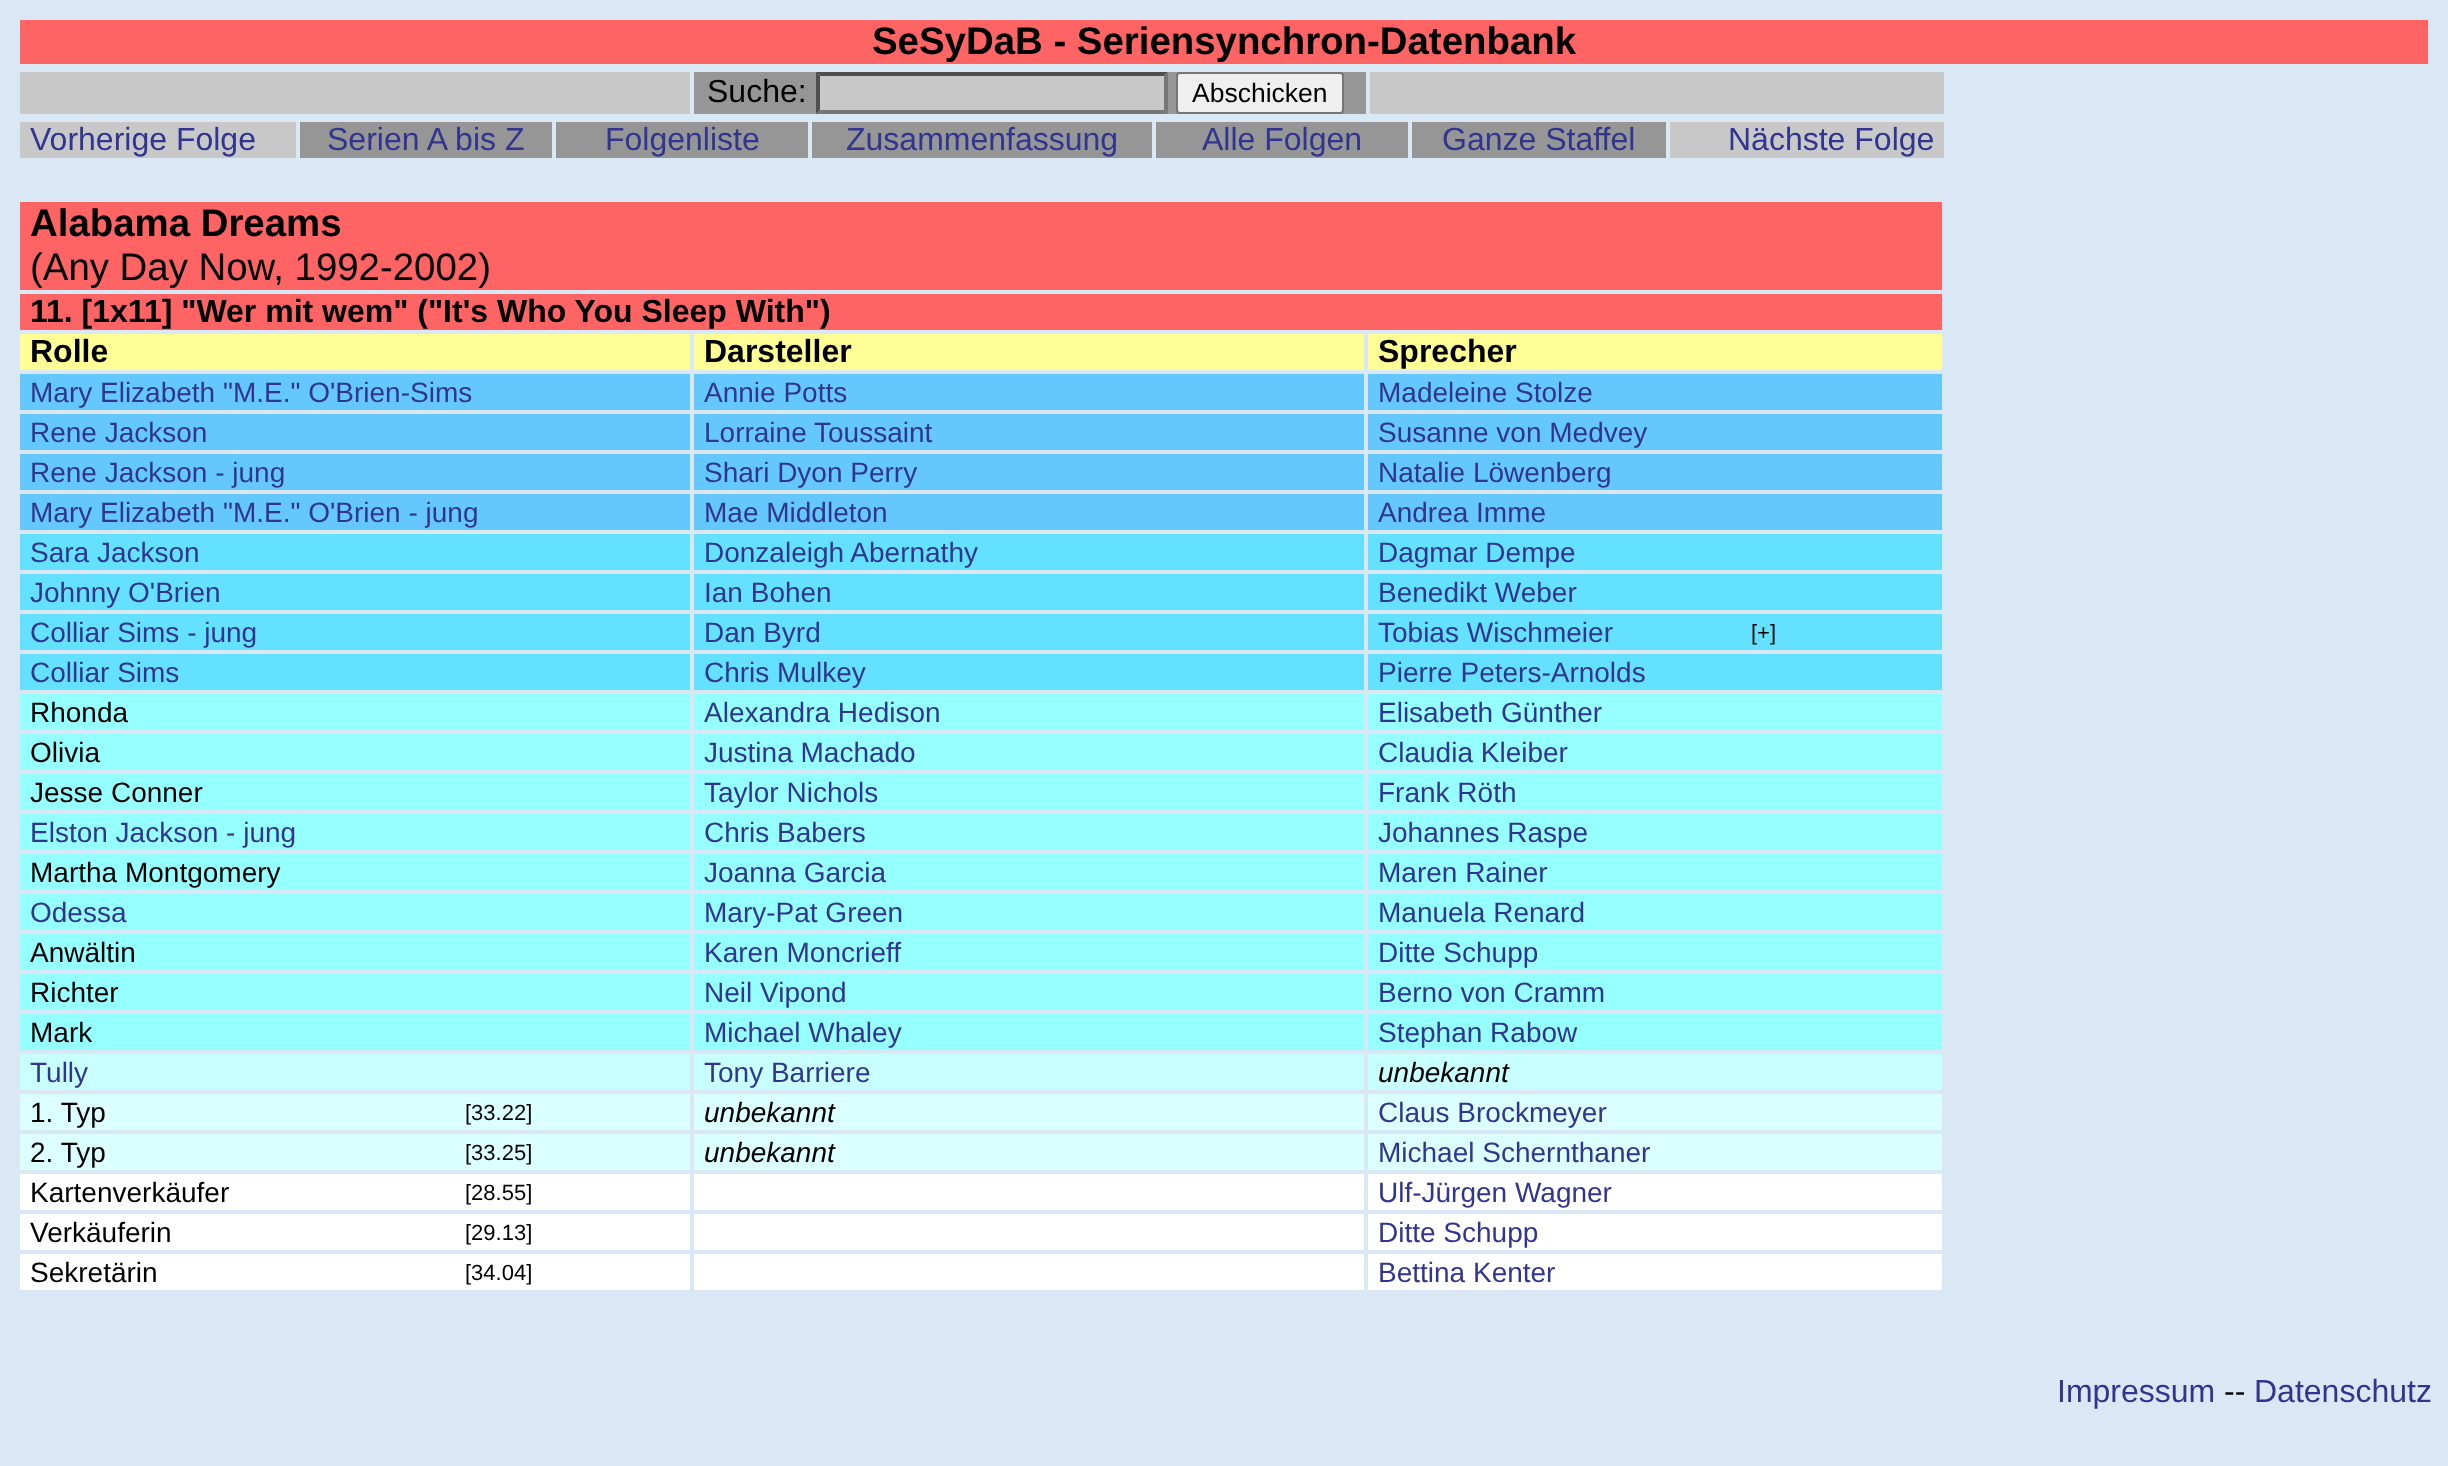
<!DOCTYPE html>
<meta charset="utf-8">
<style>body { margin: 0 } canvas { display: block }</style>
<canvas id="canvas" width="2448" height="1466"></canvas>
<script>
window.onload = function () {
	const canvas = document.getElementById("canvas");
	const ctx = canvas.getContext("2d");
	ctx.miterLimit = 4;
	ctx.fontKerning = "normal";
	function txt(s, x, y) {
		ctx.fillText(s, x, y);
	}
	function fill(x, y, w, h) {
		ctx.fillRect(x, y, w, h);
	}

	ctx.fillStyle = "#DAE7F4";
	fill(0, 0, 2448, 1466);
	ctx.fillStyle = "#FF6464";
	fill(20, 20, 2408, 44);
	ctx.fillStyle = "#C8C8C8";
	fill(20, 72, 670, 42);
	ctx.fillStyle = "#969696";
	fill(694, 72, 672, 42);
	ctx.fillStyle = "#C8C8C8";
	fill(816, 72, 352, 42);
	ctx.fillStyle = "#4F4F4F";
	ctx.beginPath();
	ctx.moveTo(816, 72);
	ctx.lineTo(1168, 72);
	ctx.lineTo(1164, 76);
	ctx.lineTo(820, 76);
	ctx.closePath();
	ctx.fill();
	ctx.fillStyle = "#767676";
	ctx.beginPath();
	ctx.moveTo(1168, 72);
	ctx.lineTo(1168, 114);
	ctx.lineTo(1164, 110);
	ctx.lineTo(1164, 76);
	ctx.closePath();
	ctx.fill();
	ctx.beginPath();
	ctx.moveTo(1168, 114);
	ctx.lineTo(816, 114);
	ctx.lineTo(820, 110);
	ctx.lineTo(1164, 110);
	ctx.closePath();
	ctx.fill();
	ctx.fillStyle = "#4F4F4F";
	ctx.beginPath();
	ctx.moveTo(816, 114);
	ctx.lineTo(816, 72);
	ctx.lineTo(820, 76);
	ctx.lineTo(820, 110);
	ctx.closePath();
	ctx.fill();
	ctx.fillStyle = "#EFEFEF";
	ctx.beginPath();
	ctx.roundRect(1177, 73, 166, 40, 3);
	ctx.fill();
	ctx.strokeStyle = "#767676";
	ctx.lineWidth = 2;
	ctx.stroke();
	ctx.fillStyle = "#C8C8C8";
	fill(1370, 72, 574, 42);
	fill(20, 122, 276, 36);
	ctx.fillStyle = "#969696";
	fill(300, 122, 252, 36);
	fill(556, 122, 252, 36);
	fill(812, 122, 340, 36);
	fill(1156, 122, 252, 36);
	fill(1412, 122, 254, 36);
	ctx.fillStyle = "#C8C8C8";
	fill(1670, 122, 274, 36);
	ctx.fillStyle = "#FF6464";
	fill(20, 202, 1922, 88);
	fill(20, 294, 1922, 36);
	ctx.fillStyle = "#FFFF96";
	fill(20, 334, 670, 36);
	fill(694, 334, 670, 36);
	fill(1368, 334, 574, 36);
	ctx.fillStyle = "#64C8FF";
	fill(20, 374, 670, 36);
	fill(694, 374, 670, 36);
	fill(1368, 374, 574, 36);
	fill(20, 414, 670, 36);
	fill(694, 414, 670, 36);
	fill(1368, 414, 574, 36);
	fill(20, 454, 670, 36);
	fill(694, 454, 670, 36);
	fill(1368, 454, 574, 36);
	fill(20, 494, 670, 36);
	fill(694, 494, 670, 36);
	fill(1368, 494, 574, 36);
	ctx.fillStyle = "#64E1FF";
	fill(20, 534, 670, 36);
	fill(694, 534, 670, 36);
	fill(1368, 534, 574, 36);
	fill(20, 574, 670, 36);
	fill(694, 574, 670, 36);
	fill(1368, 574, 574, 36);
	fill(20, 614, 670, 36);
	fill(694, 614, 670, 36);
	fill(1368, 614, 574, 36);
	fill(20, 654, 670, 36);
	fill(694, 654, 670, 36);
	fill(1368, 654, 574, 36);
	ctx.fillStyle = "#96FFFF";
	fill(20, 694, 670, 36);
	fill(694, 694, 670, 36);
	fill(1368, 694, 574, 36);
	fill(20, 734, 670, 36);
	fill(694, 734, 670, 36);
	fill(1368, 734, 574, 36);
	fill(20, 774, 670, 36);
	fill(694, 774, 670, 36);
	fill(1368, 774, 574, 36);
	fill(20, 814, 670, 36);
	fill(694, 814, 670, 36);
	fill(1368, 814, 574, 36);
	fill(20, 854, 670, 36);
	fill(694, 854, 670, 36);
	fill(1368, 854, 574, 36);
	fill(20, 894, 670, 36);
	fill(694, 894, 670, 36);
	fill(1368, 894, 574, 36);
	fill(20, 934, 670, 36);
	fill(694, 934, 670, 36);
	fill(1368, 934, 574, 36);
	fill(20, 974, 670, 36);
	fill(694, 974, 670, 36);
	fill(1368, 974, 574, 36);
	fill(20, 1014, 670, 36);
	fill(694, 1014, 670, 36);
	fill(1368, 1014, 574, 36);
	ctx.fillStyle = "#C8FFFF";
	fill(20, 1054, 670, 36);
	fill(694, 1054, 670, 36);
	fill(1368, 1054, 574, 36);
	ctx.fillStyle = "#DCFFFF";
	fill(20, 1094, 670, 36);
	fill(694, 1094, 670, 36);
	fill(1368, 1094, 574, 36);
	fill(20, 1134, 670, 36);
	fill(694, 1134, 670, 36);
	fill(1368, 1134, 574, 36);
	ctx.fillStyle = "#FFFFFF";
	fill(20, 1174, 670, 36);
	fill(694, 1174, 670, 36);
	fill(1368, 1174, 574, 36);
	fill(20, 1214, 670, 36);
	fill(694, 1214, 670, 36);
	fill(1368, 1214, 574, 36);
	fill(20, 1254, 670, 36);
	fill(694, 1254, 670, 36);
	fill(1368, 1254, 574, 36);
	ctx.font = "bold 38.4px Liberation Sans";
	ctx.fillStyle = "#000000";
	txt("SeSyDaB - Seriensynchron-Datenbank", 872, 54);
	ctx.font = "32px Liberation Sans";
	txt("Suche:", 707, 102);
	ctx.font = "26.5px Liberation Sans";
	txt("Abschicken", 1192, 102);
	ctx.font = "32px Liberation Sans";
	ctx.fillStyle = "#323590";
	txt("Vorherige Folge", 30, 150);
	txt("Serien A bis Z", 327, 150);
	txt("Folgenliste", 605, 150);
	txt("Zusammenfassung", 846, 150);
	txt("Alle Folgen", 1202, 150);
	txt("Ganze Staffel", 1442, 150);
	txt("Nächste Folge", 1728, 150);
	ctx.font = "bold 38.4px Liberation Sans";
	ctx.fillStyle = "#000000";
	txt("Alabama Dreams", 30, 236);
	ctx.font = "38.4px Liberation Sans";
	txt("(Any Day Now, 1992-2002)", 30, 280);
	ctx.font = "bold 32px Liberation Sans";
	txt("11. [1x11] \"Wer mit wem\" (\"It's Who You Sleep With\")", 30, 322);
	txt("Rolle", 30, 362);
	txt("Darsteller", 704, 362);
	txt("Sprecher", 1378, 362);
	ctx.font = "28px Liberation Sans";
	ctx.fillStyle = "#323590";
	txt("Mary Elizabeth \"M.E.\" O'Brien-Sims", 30, 402);
	txt("Annie Potts", 704, 402);
	txt("Madeleine Stolze", 1378, 402);
	txt("Rene Jackson", 30, 442);
	txt("Lorraine Toussaint", 704, 442);
	txt("Susanne von Medvey", 1378, 442);
	txt("Rene Jackson - jung", 30, 482);
	txt("Shari Dyon Perry", 704, 482);
	txt("Natalie Löwenberg", 1378, 482);
	txt("Mary Elizabeth \"M.E.\" O'Brien - jung", 30, 522);
	txt("Mae Middleton", 704, 522);
	txt("Andrea Imme", 1378, 522);
	txt("Sara Jackson", 30, 562);
	txt("Donzaleigh Abernathy", 704, 562);
	txt("Dagmar Dempe", 1378, 562);
	txt("Johnny O'Brien", 30, 602);
	txt("Ian Bohen", 704, 602);
	txt("Benedikt Weber", 1378, 602);
	txt("Colliar Sims - jung", 30, 642);
	txt("Dan Byrd", 704, 642);
	txt("Tobias Wischmeier", 1378, 642);
	ctx.font = "22px Liberation Sans";
	ctx.fillStyle = "#000000";
	txt("[+]", 1751, 640);
	ctx.font = "28px Liberation Sans";
	ctx.fillStyle = "#323590";
	txt("Colliar Sims", 30, 682);
	txt("Chris Mulkey", 704, 682);
	txt("Pierre Peters-Arnolds", 1378, 682);
	ctx.fillStyle = "#000000";
	txt("Rhonda", 30, 722);
	ctx.fillStyle = "#323590";
	txt("Alexandra Hedison", 704, 722);
	txt("Elisabeth Günther", 1378, 722);
	ctx.fillStyle = "#000000";
	txt("Olivia", 30, 762);
	ctx.fillStyle = "#323590";
	txt("Justina Machado", 704, 762);
	txt("Claudia Kleiber", 1378, 762);
	ctx.fillStyle = "#000000";
	txt("Jesse Conner", 30, 802);
	ctx.fillStyle = "#323590";
	txt("Taylor Nichols", 704, 802);
	txt("Frank Röth", 1378, 802);
	txt("Elston Jackson - jung", 30, 842);
	txt("Chris Babers", 704, 842);
	txt("Johannes Raspe", 1378, 842);
	ctx.fillStyle = "#000000";
	txt("Martha Montgomery", 30, 882);
	ctx.fillStyle = "#323590";
	txt("Joanna Garcia", 704, 882);
	txt("Maren Rainer", 1378, 882);
	txt("Odessa", 30, 922);
	txt("Mary-Pat Green", 704, 922);
	txt("Manuela Renard", 1378, 922);
	ctx.fillStyle = "#000000";
	txt("Anwältin", 30, 962);
	ctx.fillStyle = "#323590";
	txt("Karen Moncrieff", 704, 962);
	txt("Ditte Schupp", 1378, 962);
	ctx.fillStyle = "#000000";
	txt("Richter", 30, 1002);
	ctx.fillStyle = "#323590";
	txt("Neil Vipond", 704, 1002);
	txt("Berno von Cramm", 1378, 1002);
	ctx.fillStyle = "#000000";
	txt("Mark", 30, 1042);
	ctx.fillStyle = "#323590";
	txt("Michael Whaley", 704, 1042);
	txt("Stephan Rabow", 1378, 1042);
	txt("Tully", 30, 1082);
	txt("Tony Barriere", 704, 1082);
	ctx.font = "italic 28px Liberation Sans";
	ctx.fillStyle = "#000000";
	txt("unbekannt", 1378, 1082);
	ctx.font = "28px Liberation Sans";
	txt("1. Typ", 30, 1122);
	ctx.font = "22px Liberation Sans";
	txt("[33.22]", 465, 1120);
	ctx.font = "italic 28px Liberation Sans";
	txt("unbekannt", 704, 1122);
	ctx.font = "28px Liberation Sans";
	ctx.fillStyle = "#323590";
	txt("Claus Brockmeyer", 1378, 1122);
	ctx.fillStyle = "#000000";
	txt("2. Typ", 30, 1162);
	ctx.font = "22px Liberation Sans";
	txt("[33.25]", 465, 1160);
	ctx.font = "italic 28px Liberation Sans";
	txt("unbekannt", 704, 1162);
	ctx.font = "28px Liberation Sans";
	ctx.fillStyle = "#323590";
	txt("Michael Schernthaner", 1378, 1162);
	ctx.fillStyle = "#000000";
	txt("Kartenverkäufer", 30, 1202);
	ctx.font = "22px Liberation Sans";
	txt("[28.55]", 465, 1200);
	ctx.font = "28px Liberation Sans";
	ctx.fillStyle = "#323590";
	txt("Ulf-Jürgen Wagner", 1378, 1202);
	ctx.fillStyle = "#000000";
	txt("Verkäuferin", 30, 1242);
	ctx.font = "22px Liberation Sans";
	txt("[29.13]", 465, 1240);
	ctx.font = "28px Liberation Sans";
	ctx.fillStyle = "#323590";
	txt("Ditte Schupp", 1378, 1242);
	ctx.fillStyle = "#000000";
	txt("Sekretärin", 30, 1282);
	ctx.font = "22px Liberation Sans";
	txt("[34.04]", 465, 1280);
	ctx.font = "28px Liberation Sans";
	ctx.fillStyle = "#323590";
	txt("Bettina Kenter", 1378, 1282);
	ctx.font = "32px Liberation Sans";
	txt("Impressum", 2057, 1402);
	ctx.fillStyle = "#000000";
	txt("--", 2224, 1402);
	ctx.fillStyle = "#323590";
	txt("Datenschutz", 2254, 1402);
};
</script>
